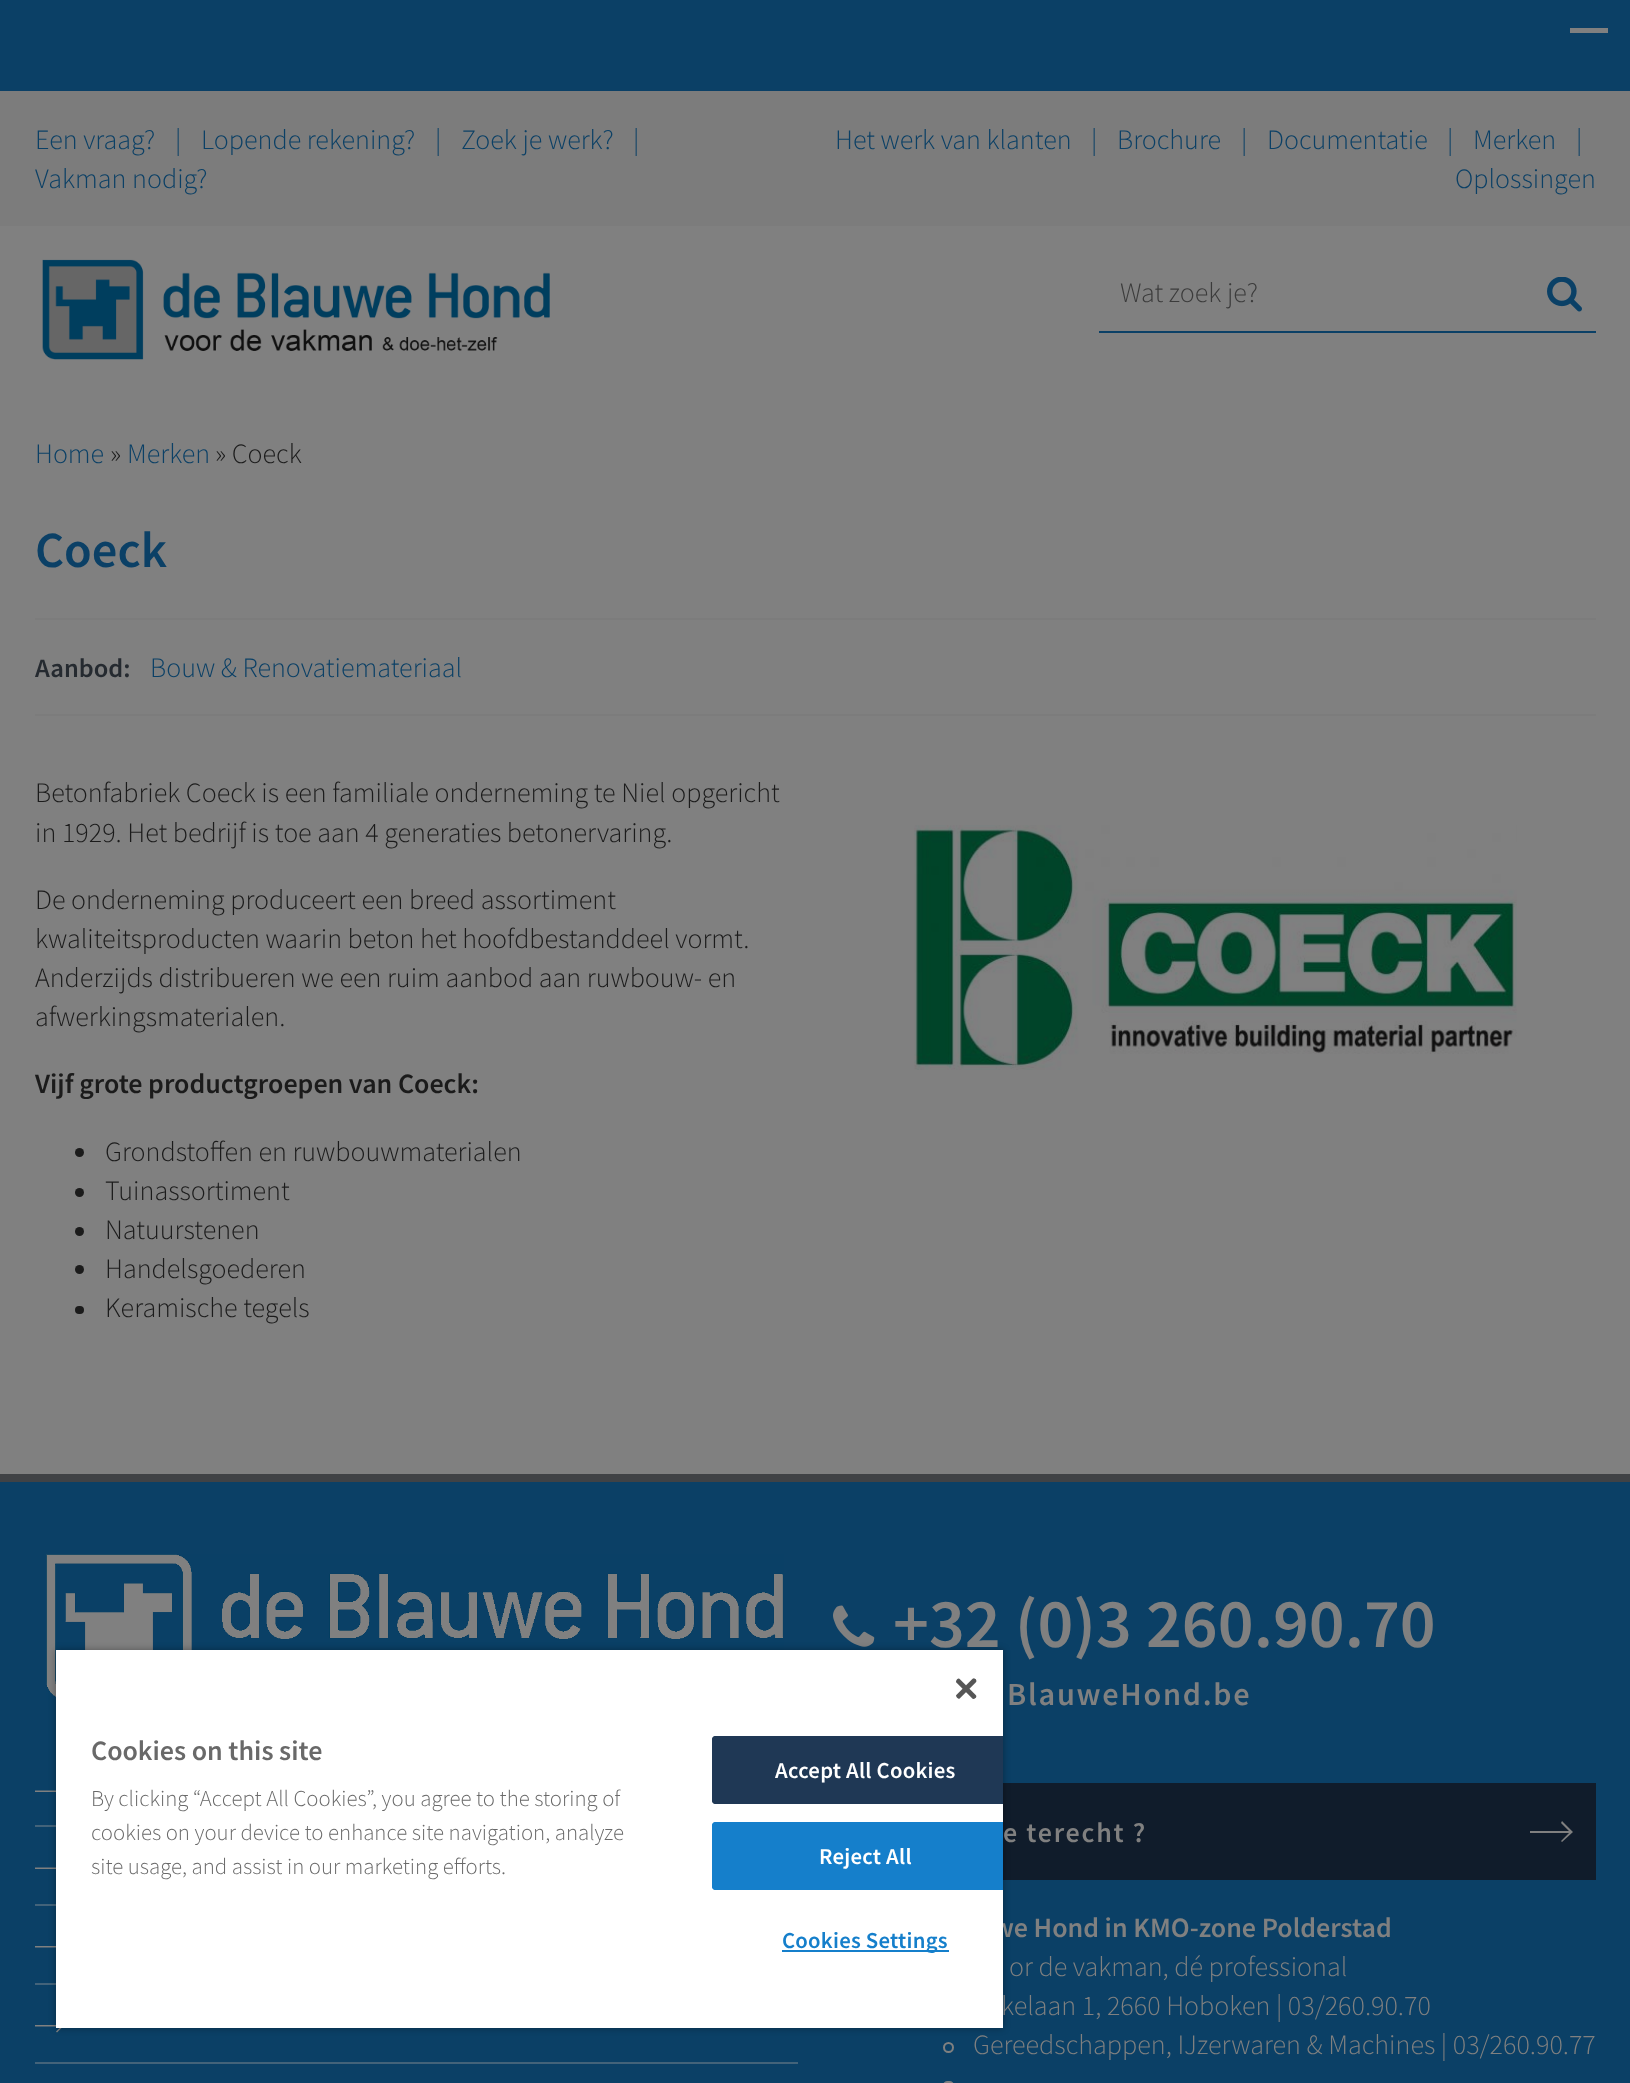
<!DOCTYPE html>
<meta charset="utf-8">
<style>body { margin: 0 } canvas { display: block }</style>
<canvas id="canvas" width="1630" height="2083"></canvas>
<img id="img1" src="img_01.png" hidden>
<img id="img2" src="img_02.png" hidden>
<img id="img3" src="img_03.png" hidden>
<img id="img4" src="img_04.png" hidden>
<img id="img5" src="img_05.png" hidden>
<img id="img6" src="img_06.png" hidden>
<script>
window.onload = function () {
	const canvas = document.getElementById("canvas");
	const ctx = canvas.getContext("2d");
	ctx.miterLimit = 4;
	ctx.fontKerning = "normal";
	function txt(s, x, y) {
		ctx.fillText(s, x, y);
	}
	function fill(x, y, w, h) {
		ctx.fillRect(x, y, w, h);
	}
	function round(x, y, w, h, r) {
		ctx.beginPath();
		ctx.roundRect(x, y, w, h, r);
		ctx.fill();
	}
	function img(id, x, y, w, h) {
		ctx.drawImage(document.getElementById(id), x, y, w, h);
	}

	ctx.fillStyle = "#808080";
	fill(0, 0, 1630, 2083);
	ctx.fillStyle = "#0B4066";
	fill(0, 0, 1630, 91);
	ctx.fillStyle = "#808080";
	fill(1570, 28, 38, 5);
	ctx.fillStyle = "#7C7C7C";
	fill(0, 91, 1630, 135);
	img("img1", 42, 259, 508, 101);
	ctx.fillStyle = "#0B4066";
	fill(1099, 331, 497, 2);
	img("img2", 1547, 277, 35, 35);
	ctx.fillStyle = "#7C7C7C";
	fill(35, 618, 1561, 2);
	fill(35, 714, 1561, 2);
	ctx.fillStyle = "#1B1B1B";
	ctx.beginPath();
	ctx.arc(79.5, 1152.5, 4.5, 0, Math.PI * 2);
	ctx.fill();
	ctx.beginPath();
	ctx.arc(79.5, 1192.5, 4.5, 0, Math.PI * 2);
	ctx.fill();
	ctx.beginPath();
	ctx.arc(79.5, 1231.5, 4.5, 0, Math.PI * 2);
	ctx.fill();
	ctx.beginPath();
	ctx.arc(79.5, 1269.5, 4.5, 0, Math.PI * 2);
	ctx.fill();
	round(75, 1306, 9, 8, 4);
	img("img3", 914, 825, 603, 245);
	ctx.fillStyle = "#0B4066";
	fill(0, 1482, 1630, 601);
	ctx.fillStyle = "#404245";
	fill(0, 1474, 1630, 8);
	img("img4", 46, 1554, 738, 146);
	ctx.fillStyle = "#43637A";
	fill(35, 1825, 21, 2);
	ctx.fillStyle = "#808080";
	ctx.beginPath();
	ctx.moveTo(57, 1798);
	ctx.lineTo(56, 1797);
	ctx.lineTo(62, 1791);
	ctx.lineTo(56, 1785);
	ctx.lineTo(57, 1784);
	ctx.lineTo(64, 1791);
	ctx.closePath();
	ctx.moveTo(35, 1790.5);
	ctx.lineTo(63, 1790.5);
	ctx.lineTo(63, 1792);
	ctx.lineTo(35, 1792);
	ctx.closePath();
	ctx.fill();
	ctx.fillStyle = "#43637A";
	fill(35, 1904, 21, 2);
	ctx.fillStyle = "#808080";
	ctx.beginPath();
	ctx.moveTo(57, 1875);
	ctx.lineTo(56, 1874);
	ctx.lineTo(62, 1868);
	ctx.lineTo(56, 1862);
	ctx.lineTo(57, 1861);
	ctx.lineTo(64, 1868);
	ctx.closePath();
	ctx.moveTo(35, 1867.5);
	ctx.lineTo(63, 1867.5);
	ctx.lineTo(63, 1869);
	ctx.lineTo(35, 1869);
	ctx.closePath();
	ctx.fill();
	ctx.fillStyle = "#43637A";
	fill(35, 1983, 21, 2);
	ctx.fillStyle = "#808080";
	ctx.beginPath();
	ctx.moveTo(57, 1954);
	ctx.lineTo(56, 1953);
	ctx.lineTo(62, 1947);
	ctx.lineTo(56, 1941);
	ctx.lineTo(57, 1940);
	ctx.lineTo(64, 1947);
	ctx.closePath();
	ctx.moveTo(35, 1946);
	ctx.lineTo(63, 1946);
	ctx.lineTo(63, 1947.5);
	ctx.lineTo(35, 1947.5);
	ctx.closePath();
	ctx.fill();
	ctx.fillStyle = "#43637A";
	fill(35, 2062, 763, 2);
	ctx.fillStyle = "#808080";
	ctx.beginPath();
	ctx.moveTo(57, 2032.5);
	ctx.lineTo(56, 2031.5);
	ctx.lineTo(62, 2025.5);
	ctx.lineTo(56, 2019.5);
	ctx.lineTo(57, 2018.5);
	ctx.lineTo(64, 2025.5);
	ctx.closePath();
	ctx.moveTo(35, 2025);
	ctx.lineTo(63, 2025);
	ctx.lineTo(63, 2026.5);
	ctx.lineTo(35, 2026.5);
	ctx.closePath();
	ctx.fill();
	img("img5", 833, 1605, 42, 42);
	ctx.fillStyle = "#101C2B";
	fill(1003, 1783, 593, 97);
	ctx.fillStyle = "#808080";
	ctx.beginPath();
	ctx.moveTo(1562, 1842);
	ctx.lineTo(1561, 1841);
	ctx.lineTo(1570, 1832);
	ctx.lineTo(1561, 1823);
	ctx.lineTo(1562, 1821);
	ctx.lineTo(1573, 1832);
	ctx.closePath();
	ctx.moveTo(1530, 1831);
	ctx.lineTo(1572, 1831);
	ctx.lineTo(1572, 1833);
	ctx.lineTo(1530, 1833);
	ctx.closePath();
	ctx.fill();
	ctx.beginPath();
	ctx.arc(948.5, 2047.5, 4.5, 0, Math.PI * 2);
	ctx.strokeStyle = "#808080";
	ctx.lineWidth = 2;
	ctx.stroke();
	ctx.beginPath();
	ctx.roundRect(944, 2082, 9, 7, 4);
	ctx.stroke();
	ctx.fillStyle = "rgba(0, 0, 0, 0.35)";
	ctx.filter = "blur(3.5px)";
	ctx.beginPath();
	ctx.rect(56, 1650, 947, 378);
	ctx.fill();
	ctx.filter = "none";
	ctx.font = "300 28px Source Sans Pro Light";
	ctx.fillStyle = "#0B4066";
	txt("Een vraag?", 35, 149);
	txt("|", 175, 149);
	txt("Lopende rekening?", 201, 149);
	txt("|", 435, 149);
	txt("Zoek je werk?", 461, 149);
	txt("|", 633, 149);
	txt("Vakman nodig?", 35, 188);
	txt("Het werk van klanten", 835, 149);
	txt("|", 1091, 149);
	txt("Brochure", 1117, 149);
	txt("|", 1241, 149);
	txt("Documentatie", 1267, 149);
	txt("|", 1447, 149);
	txt("Merken", 1473, 149);
	txt("|", 1576, 149);
	txt("Oplossingen", 1455, 188);
	ctx.fillStyle = "#3B3B3B";
	txt("Wat zoek je?", 1120, 302);
	ctx.fillStyle = "#0B4066";
	txt("Home", 35, 463);
	ctx.fillStyle = "#1B1B1B";
	txt("»", 110, 463);
	ctx.fillStyle = "#0B4066";
	txt("Merken", 127, 463);
	ctx.fillStyle = "#1B1B1B";
	txt("» Coeck", 215, 463);
	ctx.font = "600 50.5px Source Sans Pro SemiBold";
	ctx.fillStyle = "#0B4066";
	txt("Coeck", 35, 567);
	ctx.font = "600 26.5px Source Sans Pro SemiBold";
	ctx.fillStyle = "#252A30";
	txt("Aanbod:", 35, 677);
	ctx.font = "300 28px Source Sans Pro Light";
	ctx.fillStyle = "#0B4066";
	txt("Bouw & Renovatiemateriaal", 150, 677);
	ctx.fillStyle = "#1B1B1B";
	txt("Betonfabriek Coeck is een familiale onderneming te Niel opgericht", 35, 802);
	txt("in 1929. Het bedrijf is toe aan 4 generaties betonervaring.", 35, 842);
	txt("De onderneming produceert een breed assortiment", 35, 909);
	txt("kwaliteitsproducten waarin beton het hoofdbestanddeel vormt.", 35, 948);
	txt("Anderzijds distribueren we een ruim aanbod aan ruwbouw- en", 35, 987);
	txt("afwerkingsmaterialen.", 35, 1026);
	ctx.font = "600 28px Source Sans Pro SemiBold";
	txt("Vijf grote productgroepen van Coeck:", 35, 1093);
	ctx.font = "300 28px Source Sans Pro Light";
	txt("Grondstoffen en ruwbouwmaterialen", 105, 1161);
	txt("Tuinassortiment", 105, 1200);
	txt("Natuurstenen", 105, 1239);
	txt("Handelsgoederen", 105, 1278);
	txt("Keramische tegels", 105, 1317);
	ctx.font = "600 70px Source Sans Pro SemiBold";
	ctx.fillStyle = "#808080";
	txt("+32 (0)3 260.90.70", 893, 1647);
	ctx.letterSpacing = "1.75px";
	ctx.font = "600 32.25px Source Sans Pro SemiBold";
	txt("BlauweHond.be", 1007, 1705);
	ctx.font = "600 28px Source Sans Pro SemiBold";
	txt("e terecht ?", 1003, 1842);
	ctx.letterSpacing = "0px";
	txt("we Hond in KMO-zone Polderstad", 993, 1937);
	ctx.font = "300 28px Source Sans Pro Light";
	txt("or de vakman, dé professional", 1009, 1976);
	txt("kelaan 1, 2660 Hoboken | 03/260.90.70", 1001, 2015);
	txt("Gereedschappen, IJzerwaren & Machines | 03/260.90.77", 973, 2054);
	ctx.fillStyle = "#FFFFFF";
	fill(56, 1650, 947, 378);
	img("img6", 956, 1678, 21, 21);
	ctx.font = "600 28px Source Sans Pro SemiBold";
	ctx.fillStyle = "#696969";
	txt("Cookies on this site", 91, 1760);
	ctx.font = "300 22.75px Source Sans Pro Light";
	txt("By clicking “Accept All Cookies”, you agree to the storing of", 91, 1806);
	txt("cookies on your device to enhance site navigation, analyze", 91, 1840);
	txt("site usage, and assist in our marketing efforts.", 91, 1874);
	ctx.fillStyle = "#1F3855";
	ctx.beginPath();
	ctx.roundRect(712, 1736, 291, 68, [4, 0, 0, 4]);
	ctx.fill();
	ctx.save();
	ctx.beginPath();
	ctx.rect(56, 1650, 947, 378);
	ctx.clip();
	ctx.beginPath();
	ctx.roundRect(713, 1737, 305, 66, 3);
	ctx.strokeStyle = "#1F3855";
	ctx.stroke();
	ctx.restore();
	ctx.letterSpacing = "0.25px";
	ctx.font = "600 22.75px Source Sans Pro SemiBold";
	ctx.fillStyle = "#FFFFFF";
	txt("Accept All Cookies", 775, 1778);
	ctx.fillStyle = "#157FCB";
	ctx.beginPath();
	ctx.roundRect(712, 1822, 291, 68, [4, 0, 0, 4]);
	ctx.fill();
	ctx.save();
	ctx.beginPath();
	ctx.rect(56, 1650, 947, 378);
	ctx.clip();
	ctx.beginPath();
	ctx.roundRect(713, 1823, 305, 66, 3);
	ctx.strokeStyle = "#157FCB";
	ctx.stroke();
	ctx.restore();
	ctx.fillStyle = "#FFFFFF";
	txt("Reject All", 819, 1864);
	ctx.fillStyle = "#157FCB";
	fill(782, 1950, 167, 2);
	txt("Cookies Settings", 782, 1948);
};
</script>
